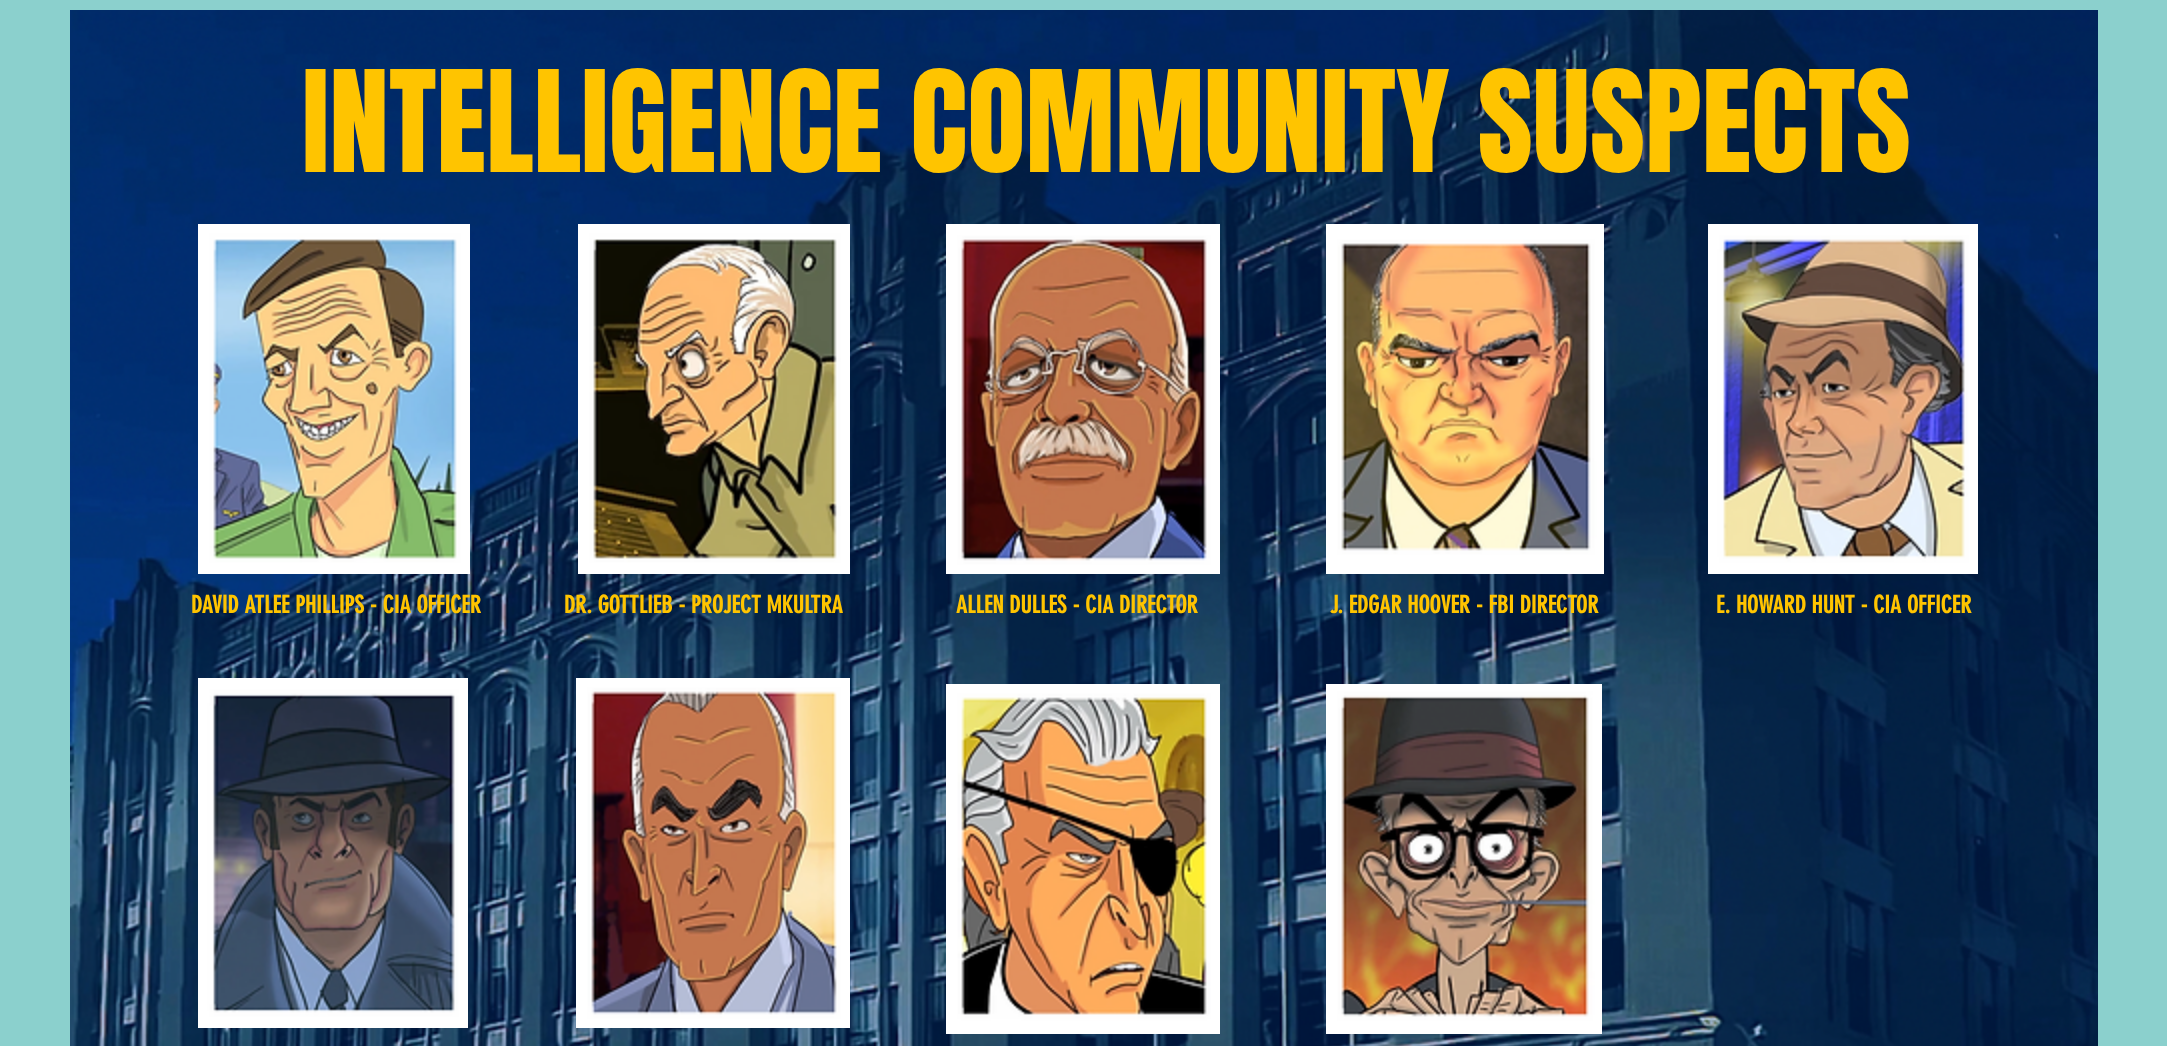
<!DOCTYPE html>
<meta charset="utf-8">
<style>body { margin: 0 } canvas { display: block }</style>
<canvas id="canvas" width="2167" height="1046"></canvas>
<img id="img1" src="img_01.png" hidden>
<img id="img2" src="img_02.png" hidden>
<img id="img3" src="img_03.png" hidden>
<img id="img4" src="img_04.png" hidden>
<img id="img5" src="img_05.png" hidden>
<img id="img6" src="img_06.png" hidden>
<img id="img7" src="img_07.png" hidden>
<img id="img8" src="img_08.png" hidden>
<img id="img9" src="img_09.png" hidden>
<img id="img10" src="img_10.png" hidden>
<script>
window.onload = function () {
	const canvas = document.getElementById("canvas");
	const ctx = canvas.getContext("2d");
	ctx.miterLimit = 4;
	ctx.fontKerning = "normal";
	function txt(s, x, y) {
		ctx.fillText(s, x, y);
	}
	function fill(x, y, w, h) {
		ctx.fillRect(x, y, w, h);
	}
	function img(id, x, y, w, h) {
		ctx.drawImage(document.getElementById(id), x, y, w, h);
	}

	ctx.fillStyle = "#8BD0CD";
	fill(0, 0, 2167, 1046);
	img("img1", 70, 10, 2028, 1036);
	img("img2", 198, 224, 272, 350);
	img("img3", 578, 224, 272, 350);
	img("img4", 946, 224, 274, 350);
	img("img5", 1326, 224, 278, 350);
	img("img6", 1708, 224, 270, 350);
	img("img7", 198, 678, 270, 350);
	img("img8", 576, 678, 274, 350);
	img("img9", 946, 684, 274, 350);
	img("img10", 1326, 684, 276, 350);
	ctx.font = "120px Anton";
	ctx.fillStyle = "#FFC400";
	txt("INTELLIGENCE COMMUNITY SUSPECTS", 302, 172);
	ctx.font = "bold 24px 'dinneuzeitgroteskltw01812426'";
	txt("DAVID ATLEE PHILLIPS - CIA OFFICER", 191, 613);
	txt("DR. GOTTLIEB - PROJECT MKULTRA", 564, 613);
	txt("ALLEN DULLES - CIA DIRECTOR", 956, 613);
	txt("J. EDGAR HOOVER - FBI DIRECTOR", 1330, 613);
	txt("E. HOWARD HUNT - CIA OFFICER", 1716, 613);
};
</script>
